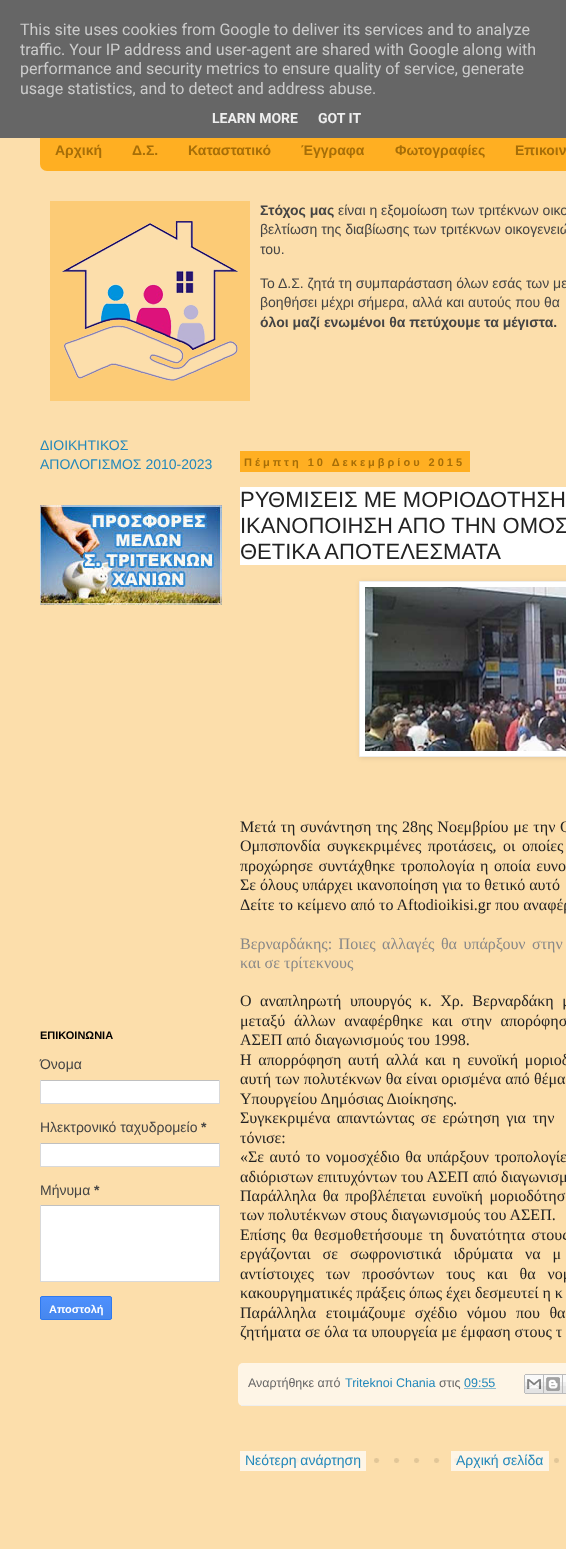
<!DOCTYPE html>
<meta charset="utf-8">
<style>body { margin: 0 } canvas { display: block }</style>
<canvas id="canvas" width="566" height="1549"></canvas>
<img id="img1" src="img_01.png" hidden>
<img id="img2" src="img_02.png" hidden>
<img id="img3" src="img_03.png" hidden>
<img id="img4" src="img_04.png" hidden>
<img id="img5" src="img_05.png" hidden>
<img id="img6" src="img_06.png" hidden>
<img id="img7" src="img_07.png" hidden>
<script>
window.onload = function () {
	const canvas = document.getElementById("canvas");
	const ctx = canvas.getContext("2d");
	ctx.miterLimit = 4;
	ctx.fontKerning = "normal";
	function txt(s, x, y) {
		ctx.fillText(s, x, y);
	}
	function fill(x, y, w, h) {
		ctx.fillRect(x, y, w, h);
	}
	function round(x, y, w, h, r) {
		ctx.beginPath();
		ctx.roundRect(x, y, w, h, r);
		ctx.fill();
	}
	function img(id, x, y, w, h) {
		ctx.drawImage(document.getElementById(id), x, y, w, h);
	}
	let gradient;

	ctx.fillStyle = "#FCDEAB";
	fill(0, 0, 566, 1549);
	ctx.fillStyle = "#FFAF22";
	round(40, 130, 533, 41, 7);
	ctx.fillStyle = "#666666";
	fill(0, 0, 566, 138);
	img("img1", 50, 201, 200, 200);
	img("img2", 40, 505, 182, 100);
	ctx.fillStyle = "#FFFFFF";
	fill(41, 1081, 178, 22);
	ctx.fillStyle = "#C0C0C0";
	fill(40, 1080, 180, 1);
	ctx.fillStyle = "#D9D9D9";
	fill(219, 1080, 1, 24);
	fill(40, 1103, 180, 1);
	fill(40, 1080, 1, 24);
	ctx.fillStyle = "#FFFFFF";
	fill(41, 1144, 178, 22);
	ctx.fillStyle = "#C0C0C0";
	fill(40, 1143, 180, 1);
	ctx.fillStyle = "#D9D9D9";
	fill(219, 1143, 1, 24);
	fill(40, 1166, 180, 1);
	fill(40, 1143, 1, 24);
	ctx.fillStyle = "#FFFFFF";
	fill(41, 1206, 178, 75);
	ctx.fillStyle = "#C0C0C0";
	fill(40, 1205, 180, 1);
	ctx.fillStyle = "#D9D9D9";
	fill(219, 1205, 1, 77);
	fill(40, 1281, 180, 1);
	fill(40, 1205, 1, 77);
	ctx.save();
	ctx.beginPath();
	ctx.roundRect(40, 1296, 72, 24, 2);
	ctx.clip();
	gradient = ctx.createLinearGradient(76, 1297, 76, 1319);
	gradient.addColorStop(0, "#4D90FE");
	gradient.addColorStop(1, "#4787ED");
	ctx.fillStyle = gradient;
	fill(40, 1297, 72, 22);
	ctx.restore();
	ctx.beginPath();
	ctx.roundRect(40.5, 1296.5, 71, 23, 1.5);
	ctx.strokeStyle = "#3079ED";
	ctx.stroke();
	ctx.fillStyle = "#FFAF22";
	fill(240, 451, 230, 21);
	ctx.fillStyle = "#FFFFFF";
	fill(240, 487, 326, 78);
	ctx.fillStyle = "rgba(0, 0, 0, 0.1)";
	ctx.filter = "blur(2.5px)";
	ctx.beginPath();
	ctx.rect(360, 582, 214, 176);
	ctx.fill();
	ctx.filter = "none";
	ctx.fillStyle = "#FFFFFF";
	ctx.beginPath();
	ctx.rect(359.5, 581.5, 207, 175);
	ctx.fill();
	ctx.strokeStyle = "#EEEEEE";
	ctx.stroke();
	img("img3", 365, 587, 201, 164);
	ctx.fillStyle = "#FEF5E6";
	round(238, 1363, 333, 43, 5);
	ctx.fillStyle = "#EEEEEE";
	fill(241, 1405, 325, 1);
	ctx.beginPath();
	ctx.moveTo(464.5, 1388.5);
	ctx.lineTo(496, 1388.5);
	ctx.strokeStyle = "#2288BB";
	ctx.setLineDash([1, 1]);
	ctx.stroke();
	img("img4", 524, 1374, 20, 20);
	img("img5", 544, 1374, 19, 20);
	img("img6", 563, 1374, 3, 20);
	img("img7", 254, 1458, 305, 5);
	ctx.fillStyle = "rgba(255, 255, 255, 0.7)";
	fill(240, 1451, 126, 20);
	fill(451, 1451, 98, 20);
	ctx.font = "16px Roboto";
	ctx.fillStyle = "#CCCCCC";
	txt("This site uses cookies from Google to deliver its services and to analyze", 20, 35);
	txt("traffic. Your IP address and user-agent are shared with Google along with", 20, 55);
	txt("performance and security metrics to ensure quality of service, generate", 20, 74);
	txt("usage statistics, and to detect and address abuse.", 20, 94);
	ctx.font = "bold 14px Roboto";
	ctx.fillStyle = "#EEEEEE";
	txt("LEARN MORE", 212, 123);
	txt("GOT IT", 318, 123);
	ctx.font = "bold 14px Liberation Sans";
	ctx.fillStyle = "#A66E08";
	txt("Αρχική", 55, 155);
	txt("Δ.Σ.", 132, 155);
	txt("Καταστατικό", 188, 155);
	txt("Έγγραφα", 301, 155);
	txt("Φωτογραφίες", 395, 155);
	txt("Επικοιν", 515, 155);
	ctx.fillStyle = "#444444";
	txt("Στόχος μας", 260, 215);
	ctx.font = "14px Liberation Sans";
	txt("είναι η εξομοίωση των τριτέκνων οικο", 338, 215);
	txt("βελτίωση της διαβίωσης των τριτέκνων οικογενειώ", 260, 234);
	txt("του.", 260, 254);
	txt("Το Δ.Σ. ζητά τη συμπαράσταση όλων εσάς των με", 260, 288);
	txt("βοηθήσει μέχρι σήμερα, αλλά και αυτούς που θα", 260, 307);
	ctx.font = "bold 14px Liberation Sans";
	txt("όλοι μαζί ενωμένοι θα πετύχουμε τα μέγιστα.", 260, 327);
	ctx.font = "14px Liberation Sans";
	ctx.fillStyle = "#2288BB";
	txt("ΔΙΟΙΚΗΤΙΚΟΣ", 40, 450);
	txt("ΑΠΟΛΟΓΙΣΜΟΣ 2010-2023", 40, 469);
	ctx.font = "bold 11px Liberation Sans";
	ctx.fillStyle = "#000000";
	txt("ΕΠΙΚΟΙΝΩΝΙΑ", 40, 1039);
	ctx.font = "14px Liberation Sans";
	ctx.fillStyle = "#444444";
	txt("Όνομα", 40, 1069);
	txt("Ηλεκτρονικό ταχυδρομείο", 40, 1132);
	ctx.font = "bold 14px Liberation Sans";
	txt("*", 201, 1132);
	ctx.font = "14px Liberation Sans";
	txt("Μήνυμα", 40, 1195);
	ctx.font = "bold 14px Liberation Sans";
	txt("*", 94, 1195);
	ctx.font = "bold 11px Liberation Sans";
	ctx.fillStyle = "#FFFFFF";
	txt("Αποστολή", 49, 1313);
	ctx.letterSpacing = "3px";
	ctx.fillStyle = "#A66E08";
	txt("Πέμπτη 10 Δεκεμβρίου 2015", 244, 466);
	ctx.letterSpacing = "0px";
	ctx.font = "22px Liberation Sans";
	ctx.fillStyle = "#222222";
	txt("ΡΥΘΜΙΣΕΙΣ ΜΕ ΜΟΡΙΟΔΟΤΗΣΗ", 240, 507);
	txt("ΙΚΑΝΟΠΟΙΗΣΗ ΑΠΟ ΤΗΝ ΟΜΟΣ", 240, 533);
	txt("ΘΕΤΙΚΑ ΑΠΟΤΕΛΕΣΜΑΤΑ", 240, 559);
	ctx.wordSpacing = "0.75px";
	ctx.font = "16px Liberation Serif";
	txt("Μετά τη συνάντηση της 28ης Νοεμβρίου με την Ο", 240, 832);
	ctx.wordSpacing = "2.5px";
	txt("Ομπσπονδία συγκεκριμένες προτάσεις, οι οποίες", 240, 851);
	ctx.wordSpacing = "1.5px";
	txt("προχώρησε συντάχθηκε τροπολογία η οποία ευνο", 240, 871);
	ctx.wordSpacing = "0px";
	txt("Σε όλους υπάρχει ικανοποίηση για το θετικό αυτό", 240, 890);
	txt("Δείτε το κείμενο από το Αftodioikisi.gr που αναφέρ", 240, 910);
	ctx.wordSpacing = "2.5px";
	ctx.fillStyle = "#888888";
	txt("Βερναρδάκης: Ποιες αλλαγές θα υπάρξουν στην", 240, 949);
	ctx.wordSpacing = "0px";
	txt("και σε τρίτεκνους", 240, 968);
	ctx.wordSpacing = "4.5px";
	ctx.fillStyle = "#222222";
	txt("O αναπληρωτή υπουργός κ. Χρ. Βερναρδάκη μ", 240, 1006);
	ctx.wordSpacing = "4.75px";
	txt("μεταξύ άλλων αναφέρθηκε και στην απορόφησ", 240, 1026);
	ctx.wordSpacing = "0px";
	txt("ΑΣΕΠ από διαγωνισμούς του 1998.", 240, 1045);
	ctx.wordSpacing = "2.75px";
	txt("Η απορρόφηση αυτή αλλά και η ευνοϊκή μοριοδ", 240, 1065);
	ctx.wordSpacing = "0.25px";
	txt("αυτή των πολυτέκνων θα είναι ορισμένα από θέμα", 240, 1084);
	ctx.wordSpacing = "0px";
	txt("Υπουργείου Δημόσιας Διοίκησης.", 240, 1104);
	ctx.wordSpacing = "2.5px";
	txt("Συγκεκριμένα απαντώντας σε ερώτηση για την", 240, 1123);
	ctx.wordSpacing = "0px";
	txt("τόνισε:", 240, 1143);
	ctx.wordSpacing = "1.5px";
	txt("«Σε αυτό το νομοσχέδιο θα υπάρξουν τροπολογίε", 240, 1162);
	ctx.wordSpacing = "0px";
	txt("αδιόριστων επιτυχόντων του ΑΣΕΠ από διαγωνισμ", 240, 1182);
	ctx.wordSpacing = "2.5px";
	txt("Παράλληλα θα προβλέπεται ευνοϊκή μοριοδότησ", 240, 1201);
	ctx.wordSpacing = "0px";
	txt("των πολυτέκνων στους διαγωνισμούς του ΑΣΕΠ.", 240, 1220);
	ctx.wordSpacing = "2.25px";
	txt("Επίσης θα θεσμοθετήσουμε τη δυνατότητα στους", 240, 1240);
	ctx.wordSpacing = "8px";
	txt("εργάζονται σε σωφρονιστικά ιδρύματα να μ", 240, 1259);
	txt("αντίστοιχες των προσόντων τους και θα νομ", 240, 1279);
	ctx.wordSpacing = "0px";
	txt("κακουργηματικές πράξεις όπως έχει δεσμευτεί η κ", 240, 1298);
	ctx.wordSpacing = "5.5px";
	txt("Παράλληλα ετοιμάζουμε σχέδιο νόμου που θα", 240, 1318);
	ctx.wordSpacing = "0px";
	txt("ζητήματα σε όλα τα υπουργεία με έμφαση στους τ", 240, 1337);
	ctx.font = "12.5px Liberation Sans";
	ctx.fillStyle = "#666666";
	txt("Αναρτήθηκε από", 248, 1387);
	ctx.fillStyle = "#2288BB";
	txt("Triteknoi Chania", 345, 1387);
	ctx.fillStyle = "#666666";
	txt("στις", 439, 1387);
	ctx.fillStyle = "#2288BB";
	txt("09:55", 464, 1387);
	ctx.font = "14px Liberation Sans";
	txt("Νεότερη ανάρτηση", 245, 1465);
	txt("Αρχική σελίδα", 456, 1465);
};
</script>
